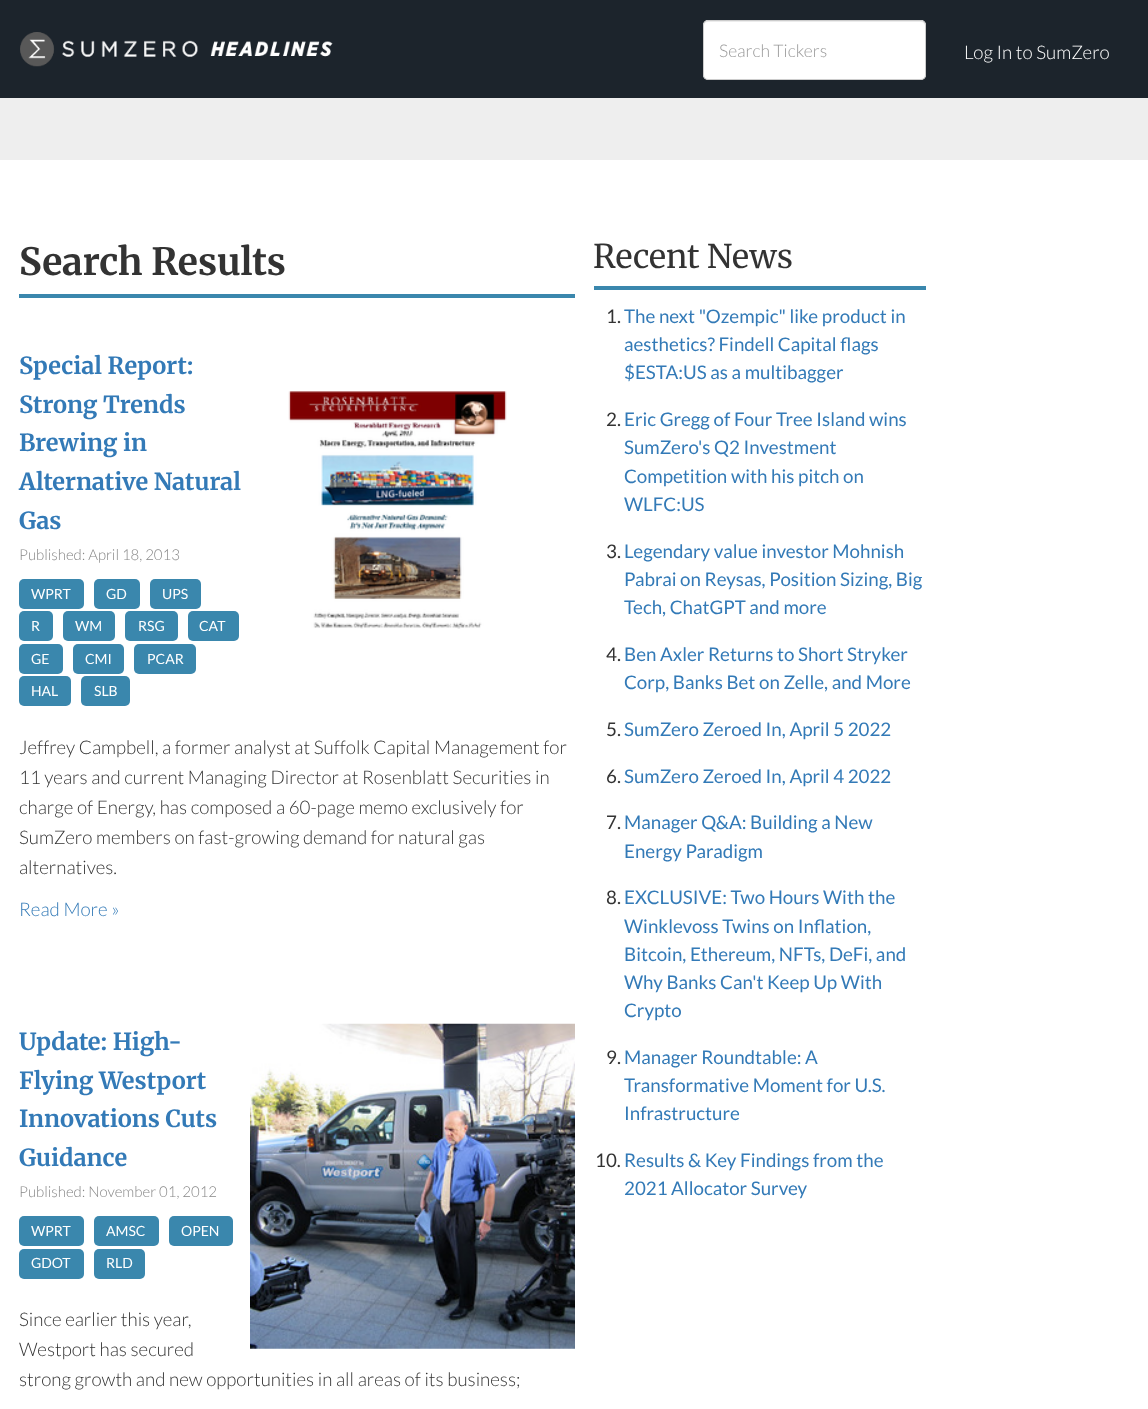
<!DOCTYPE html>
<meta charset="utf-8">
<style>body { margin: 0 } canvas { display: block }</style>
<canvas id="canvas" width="1148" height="1409"></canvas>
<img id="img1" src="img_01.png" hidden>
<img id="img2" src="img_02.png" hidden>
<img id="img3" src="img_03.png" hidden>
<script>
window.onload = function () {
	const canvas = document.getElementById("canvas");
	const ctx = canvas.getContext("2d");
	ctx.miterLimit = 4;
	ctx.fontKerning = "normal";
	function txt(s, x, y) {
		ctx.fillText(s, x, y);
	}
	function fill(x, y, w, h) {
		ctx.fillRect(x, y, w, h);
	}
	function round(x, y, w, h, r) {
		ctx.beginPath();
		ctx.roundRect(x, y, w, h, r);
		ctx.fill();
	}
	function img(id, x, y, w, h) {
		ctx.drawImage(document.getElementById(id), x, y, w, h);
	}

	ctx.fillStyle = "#FFFFFF";
	fill(0, 0, 1148, 1409);
	ctx.fillStyle = "#1C242C";
	fill(0, 0, 1148, 98);
	img("img1", 20, 32, 313, 35);
	ctx.fillStyle = "#FFFFFF";
	round(703, 20, 223, 60, 5);
	ctx.fillStyle = "#ECECEC";
	ctx.beginPath();
	ctx.moveTo(708, 22);
	ctx.lineTo(921, 22);
	ctx.bezierCurveTo(923, 22, 925, 24, 925, 26);
	ctx.bezierCurveTo(925, 23, 924, 21, 921, 21);
	ctx.lineTo(708, 21);
	ctx.bezierCurveTo(705, 21, 704, 23, 704, 26);
	ctx.bezierCurveTo(704, 24, 705, 22, 708, 22);
	ctx.closePath();
	ctx.fill();
	ctx.beginPath();
	ctx.roundRect(703.5, 20.5, 222, 59, 4.5);
	ctx.strokeStyle = "#CCCCCC";
	ctx.stroke();
	ctx.fillStyle = "#EEEEEE";
	fill(0, 98, 1148, 62);
	ctx.fillStyle = "#3A87AD";
	fill(19, 294, 556, 4);
	round(19, 579, 65, 30, 5);
	round(94, 579, 46, 30, 5);
	round(150, 579, 51, 30, 5);
	round(19, 611, 34, 30, 5);
	round(63, 611, 52, 30, 5);
	round(125, 611, 53, 30, 5);
	round(188, 611, 51, 30, 5);
	round(19, 644, 44, 30, 5);
	round(73, 644, 51, 30, 5);
	round(134, 644, 62, 30, 5);
	round(19, 676, 52, 30, 5);
	round(81, 676, 49, 30, 5);
	img("img2", 288, 391, 219, 238);
	round(19, 1216, 65, 30, 5);
	round(94, 1216, 65, 30, 5);
	round(169, 1216, 64, 30, 5);
	round(19, 1249, 65, 30, 5);
	round(94, 1249, 51, 30, 5);
	img("img3", 250, 1023, 325, 326);
	fill(594, 286, 332, 4);
	ctx.font = "300 17.5px Lato";
	ctx.fillStyle = "#999999";
	txt("Search Tickers", 719, 57);
	ctx.font = "300 18.75px Lato";
	ctx.fillStyle = "#FFFFFF";
	txt("Log In to SumZero", 964, 59);
	ctx.font = "bold 37.5px Merriweather";
	ctx.fillStyle = "#333333";
	txt("Search Results", 19, 275);
	ctx.font = "bold 23.5px 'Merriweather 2'";
	ctx.fillStyle = "#337AB7";
	txt("Special Report:", 19, 374);
	txt("Strong Trends", 19, 413);
	txt("Brewing in", 19, 451);
	txt("Alternative Natural", 19, 490);
	txt("Gas", 19, 529);
	ctx.font = "300 15px Lato";
	ctx.fillStyle = "#888888";
	txt("Published: April 18, 2013", 19, 560);
	ctx.font = "14px Lato";
	ctx.fillStyle = "#FFFFFF";
	txt("WPRT", 31, 599);
	txt("GD", 106, 599);
	txt("UPS", 162, 599);
	txt("R", 31, 631);
	txt("WM", 75, 631);
	txt("RSG", 138, 631);
	txt("CAT", 199, 631);
	txt("GE", 31, 664);
	txt("CMI", 85, 664);
	txt("PCAR", 147, 664);
	txt("HAL", 31, 696);
	txt("SLB", 94, 696);
	ctx.font = "300 18.75px Lato";
	ctx.fillStyle = "#333333";
	txt("Jeffrey Campbell, a former analyst at Suffolk Capital Management for", 19, 754);
	txt("11 years and current Managing Director at Rosenblatt Securities in", 19, 784);
	txt("charge of Energy, has composed a 60-page memo exclusively for", 19, 814);
	txt("SumZero members on fast-growing demand for natural gas", 19, 844);
	txt("alternatives.", 19, 874);
	ctx.fillStyle = "#337AB7";
	txt("Read More »", 19, 916);
	ctx.font = "bold 23.5px 'Merriweather 2'";
	txt("Update: High-", 19, 1050);
	txt("Flying Westport", 19, 1089);
	txt("Innovations Cuts", 19, 1127);
	txt("Guidance", 19, 1166);
	ctx.font = "300 15px Lato";
	ctx.fillStyle = "#888888";
	txt("Published: November 01, 2012", 19, 1197);
	ctx.font = "14px Lato";
	ctx.fillStyle = "#FFFFFF";
	txt("WPRT", 31, 1236);
	txt("AMSC", 106, 1236);
	txt("OPEN", 181, 1236);
	txt("GDOT", 31, 1268);
	txt("RLD", 106, 1268);
	ctx.font = "300 18.75px Lato";
	ctx.fillStyle = "#333333";
	txt("Since earlier this year,", 19, 1326);
	txt("Westport has secured", 19, 1356);
	txt("strong growth and new opportunities in all areas of its business;", 19, 1386);
	ctx.font = "32.75px Merriweather";
	txt("Recent News", 593, 268);
	ctx.font = "18.75px Lato";
	txt("1.", 606, 323);
	ctx.fillStyle = "#337AB7";
	txt("The next \"Ozempic\" like product in", 624, 323);
	txt("aesthetics? Findell Capital flags", 624, 351);
	txt("$ESTA:US as a multibagger", 624, 379);
	ctx.fillStyle = "#333333";
	txt("2.", 606, 426);
	ctx.fillStyle = "#337AB7";
	txt("Eric Gregg of Four Tree Island wins", 624, 426);
	txt("SumZero's Q2 Investment", 624, 454);
	txt("Competition with his pitch on", 624, 483);
	txt("WLFC:US", 624, 511);
	ctx.fillStyle = "#333333";
	txt("3.", 606, 558);
	ctx.fillStyle = "#337AB7";
	txt("Legendary value investor Mohnish", 624, 558);
	txt("Pabrai on Reysas, Position Sizing, Big", 624, 586);
	txt("Tech, ChatGPT and more", 624, 614);
	ctx.fillStyle = "#333333";
	txt("4.", 606, 661);
	ctx.fillStyle = "#337AB7";
	txt("Ben Axler Returns to Short Stryker", 624, 661);
	txt("Corp, Banks Bet on Zelle, and More", 624, 689);
	ctx.fillStyle = "#333333";
	txt("5.", 606, 736);
	ctx.fillStyle = "#337AB7";
	txt("SumZero Zeroed In, April 5 2022", 624, 736);
	ctx.fillStyle = "#333333";
	txt("6.", 606, 783);
	ctx.fillStyle = "#337AB7";
	txt("SumZero Zeroed In, April 4 2022", 624, 783);
	ctx.fillStyle = "#333333";
	txt("7.", 606, 829);
	ctx.fillStyle = "#337AB7";
	txt("Manager Q&A: Building a New", 624, 829);
	txt("Energy Paradigm", 624, 858);
	ctx.fillStyle = "#333333";
	txt("8.", 606, 904);
	ctx.fillStyle = "#337AB7";
	txt("EXCLUSIVE: Two Hours With the", 624, 904);
	txt("Winklevoss Twins on Inflation,", 624, 933);
	txt("Bitcoin, Ethereum, NFTs, DeFi, and", 624, 961);
	txt("Why Banks Can't Keep Up With", 624, 989);
	txt("Crypto", 624, 1017);
	ctx.fillStyle = "#333333";
	txt("9.", 606, 1064);
	ctx.fillStyle = "#337AB7";
	txt("Manager Roundtable: A", 624, 1064);
	txt("Transformative Moment for U.S.", 624, 1092);
	txt("Infrastructure", 624, 1120);
	ctx.fillStyle = "#333333";
	txt("10.", 595, 1167);
	ctx.fillStyle = "#337AB7";
	txt("Results & Key Findings from the", 624, 1167);
	txt("2021 Allocator Survey", 624, 1195);
};
</script>
